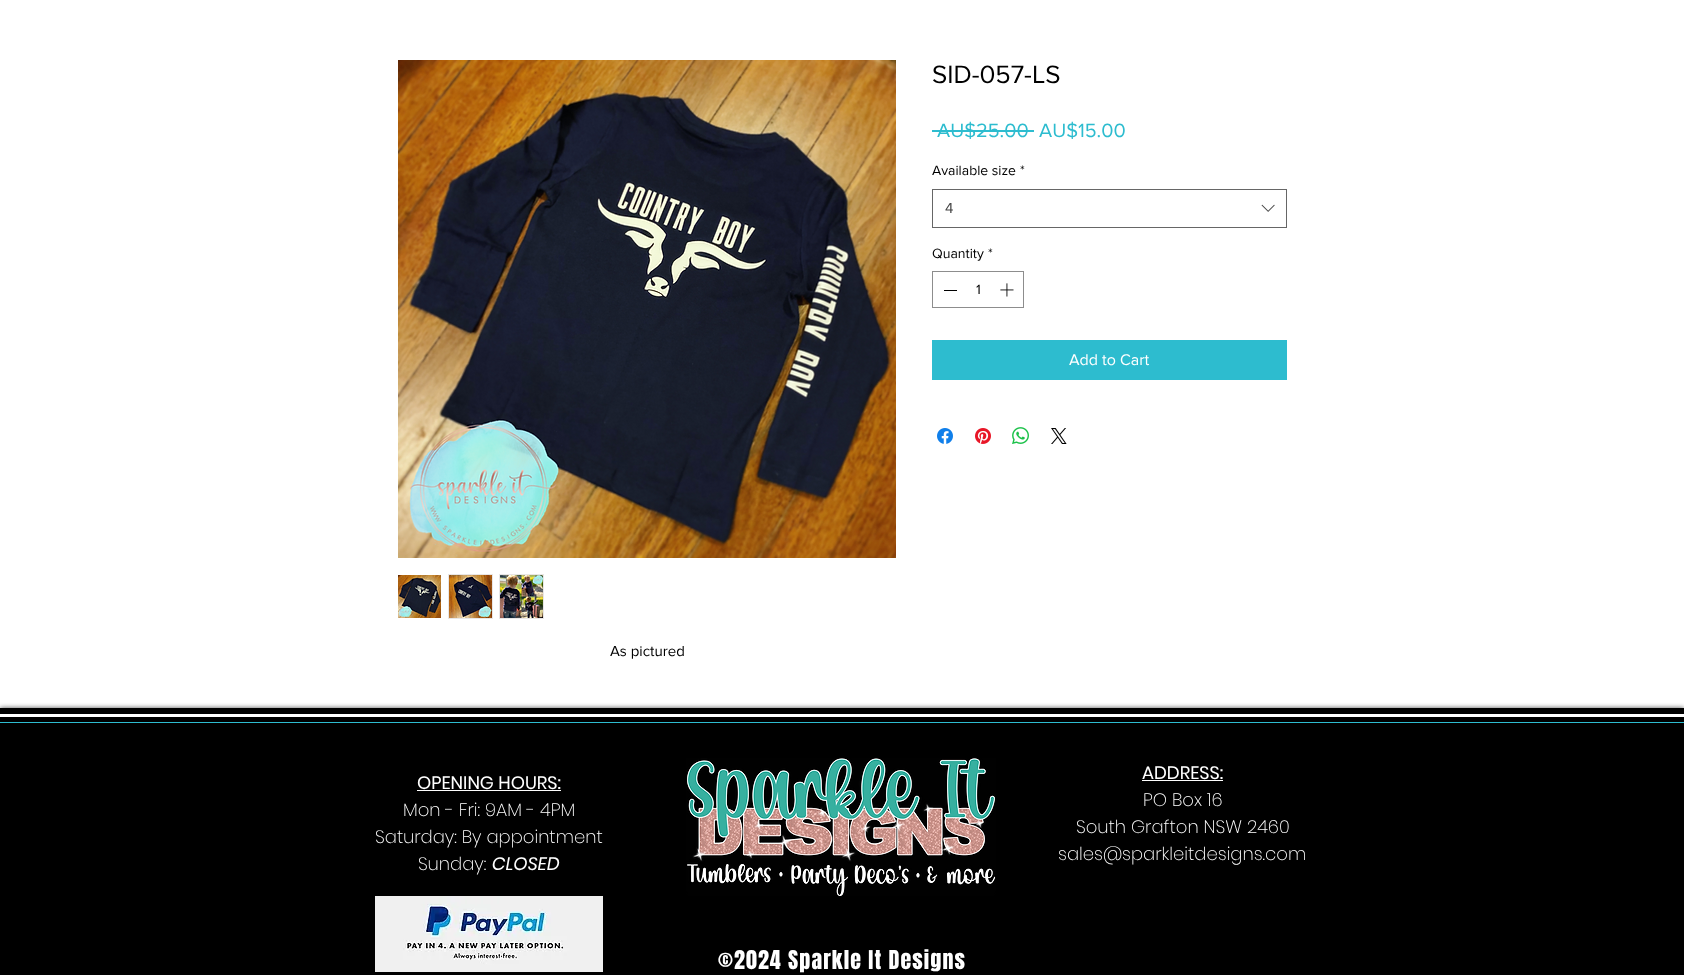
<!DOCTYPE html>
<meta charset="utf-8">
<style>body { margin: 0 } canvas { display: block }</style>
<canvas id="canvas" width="1684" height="975"></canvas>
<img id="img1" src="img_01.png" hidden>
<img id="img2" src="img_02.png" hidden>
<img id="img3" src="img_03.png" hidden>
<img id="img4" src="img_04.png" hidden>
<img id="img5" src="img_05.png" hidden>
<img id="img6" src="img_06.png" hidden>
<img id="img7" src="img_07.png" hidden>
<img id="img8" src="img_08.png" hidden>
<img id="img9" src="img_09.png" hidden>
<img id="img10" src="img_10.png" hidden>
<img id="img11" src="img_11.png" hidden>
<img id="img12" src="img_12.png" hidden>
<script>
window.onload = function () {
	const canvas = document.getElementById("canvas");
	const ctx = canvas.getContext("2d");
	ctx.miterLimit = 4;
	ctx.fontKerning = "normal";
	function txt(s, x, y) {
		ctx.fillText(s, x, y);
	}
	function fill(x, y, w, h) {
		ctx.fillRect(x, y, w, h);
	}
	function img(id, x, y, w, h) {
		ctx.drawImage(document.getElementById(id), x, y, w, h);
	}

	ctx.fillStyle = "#FFFFFF";
	fill(0, 0, 1684, 975);
	ctx.fillStyle = "#2DBCCF";
	fill(932, 130, 102, 2);
	ctx.strokeStyle = "#666666";
	ctx.strokeRect(932.5, 189.5, 354, 38);
	img("img1", 1261, 204, 14, 8);
	ctx.strokeStyle = "#8D8D8D";
	ctx.strokeRect(932.5, 271.5, 91, 36);
	ctx.fillStyle = "#000000";
	fill(944, 290, 13, 1);
	img("img2", 1000, 283, 14, 14);
	ctx.fillStyle = "#2DBCCF";
	fill(932, 340, 355, 40);
	img("img3", 937, 428, 16, 16);
	img("img4", 975, 428, 16, 16);
	img("img5", 1012, 427, 17, 17);
	img("img6", 1051, 428, 16, 16);
	img("img7", 398, 60, 498, 498);
	img("img8", 398, 575, 43, 43);
	ctx.strokeStyle = "#E8E6E6";
	ctx.strokeRect(448.5, 574.5, 44, 44);
	img("img9", 449, 575, 43, 43);
	ctx.strokeRect(499.5, 574.5, 44, 44);
	img("img10", 500, 575, 43, 43);
	ctx.fillStyle = "rgba(0, 0, 0, 0.7)";
	ctx.filter = "blur(2.5px)";
	ctx.beginPath();
	ctx.rect(0, 708, 1684, 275);
	ctx.fill();
	ctx.filter = "none";
	ctx.fillStyle = "#000000";
	fill(0, 708, 1684, 267);
	ctx.fillStyle = "#FFFFFF";
	fill(0, 714, 1684, 3);
	ctx.fillStyle = "#2DBCCF";
	fill(0, 722, 1684, 1);
	ctx.fillStyle = "#FFFFFF";
	fill(417, 790, 144, 1);
	img("img11", 686, 758, 310, 138);
	fill(1142, 780, 81, 1);
	img("img12", 375, 896, 228, 76);
	ctx.font = "26px 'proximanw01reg'";
	ctx.fillStyle = "#000000";
	txt("SID-057-LS", 932, 83);
	ctx.font = "20px 'proximanw01reg'";
	ctx.fillStyle = "#2DBCCF";
	txt("AU$25.00", 937, 137);
	txt("AU$15.00", 1039, 137);
	ctx.font = "14px 'proximanw01reg'";
	ctx.fillStyle = "#000000";
	txt("Available size", 932, 175);
	txt("*", 1020, 175);
	ctx.font = "15px 'proximanw01reg'";
	ctx.fillStyle = "#444444";
	txt("4", 945, 213);
	ctx.font = "14px 'proximanw01reg'";
	ctx.fillStyle = "#000000";
	txt("Quantity", 932, 258);
	txt("*", 988, 258);
	txt("1", 976, 294);
	ctx.font = "16px 'proximanw01reg'";
	ctx.fillStyle = "#FFFFFF";
	txt("Add to Cart", 1069, 365);
	ctx.font = "15px 'proximanw01reg'";
	ctx.fillStyle = "#000000";
	txt("As pictured", 610, 656);
	ctx.font = "18px Poppins";
	ctx.fillStyle = "#FFFFFF";
	txt("OPENING HOURS:", 417, 789);
	ctx.font = "200 18px Poppins";
	txt("Mon - Fri: 9AM - 4PM", 403, 816);
	txt("Saturday: By appointment", 375, 843);
	txt("Sunday:", 418, 870);
	ctx.font = "italic 18px Poppins";
	txt("CLOSED", 492, 870);
	ctx.font = "18px Poppins";
	txt("ADDRESS:", 1142, 779);
	ctx.font = "200 18px Poppins";
	txt("PO Box 16", 1143, 806);
	txt("South Grafton NSW 2460", 1076, 833);
	txt("sales@sparkleitdesigns.com", 1058, 860);
	ctx.letterSpacing = "1.1px";
	ctx.font = "22px Anton";
	txt("©2024 Sparkle It Designs", 718, 969);
};
</script>
